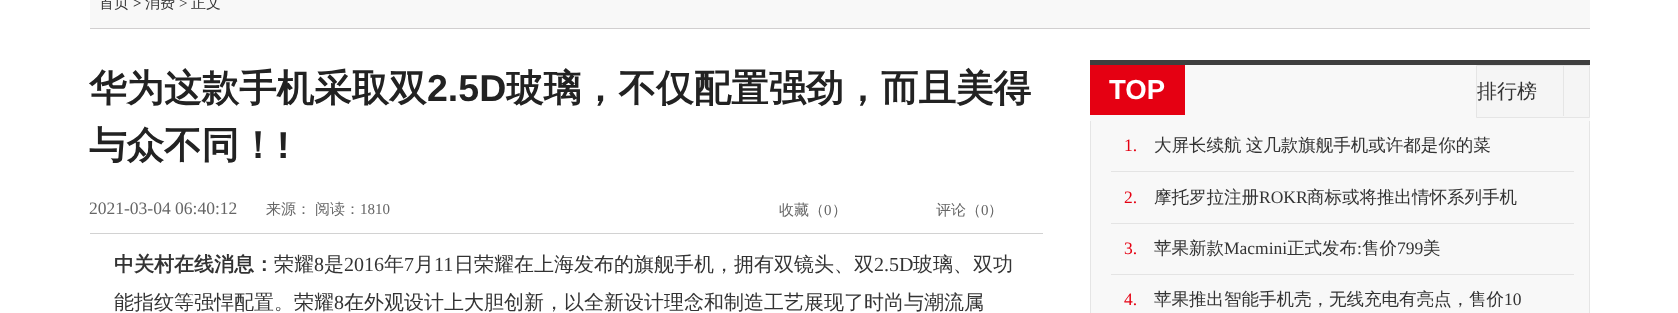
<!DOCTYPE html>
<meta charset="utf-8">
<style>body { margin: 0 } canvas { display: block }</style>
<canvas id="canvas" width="1678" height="313"></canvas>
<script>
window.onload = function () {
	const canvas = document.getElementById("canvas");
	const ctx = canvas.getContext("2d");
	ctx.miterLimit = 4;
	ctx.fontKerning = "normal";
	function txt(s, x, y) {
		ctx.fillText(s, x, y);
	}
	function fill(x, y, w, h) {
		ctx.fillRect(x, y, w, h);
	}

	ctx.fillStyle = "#FFFFFF";
	fill(0, 0, 1678, 313);
	ctx.fillStyle = "#F8F8F8";
	fill(90, 0, 1500, 28);
	ctx.fillStyle = "#D1CFD0";
	fill(90, 28, 1500, 1);
	ctx.fillStyle = "#D2D2D2";
	fill(90, 233, 953, 1);
	ctx.fillStyle = "#F8F8F8";
	fill(1090, 65, 500, 248);
	ctx.fillStyle = "#3F3F3F";
	fill(1090, 60, 500, 5);
	ctx.fillStyle = "#E50012";
	fill(1090, 65, 95, 50);
	ctx.fillStyle = "#F5F5F5";
	ctx.beginPath();
	ctx.rect(1476.5, 65.5, 113, 52);
	ctx.fill();
	ctx.strokeStyle = "#E5E5E5";
	ctx.stroke();
	ctx.fillStyle = "#E5E5E5";
	fill(1563, 66, 1, 50);
	fill(1589, 121, 1, 192);
	fill(1090, 121, 1, 192);
	ctx.fillStyle = "#E4E4E4";
	fill(1111, 171, 463, 1);
	fill(1111, 223, 463, 1);
	fill(1111, 274, 463, 1);
	ctx.font = "500 15px WenQuanYi Zen Hei";
	ctx.fillStyle = "#333333";
	txt("首页", 99, 8);
	ctx.font = "bold 15px Liberation Serif";
	txt(">", 133, 8);
	ctx.font = "500 15px WenQuanYi Zen Hei";
	txt("消费", 145, 8);
	ctx.font = "15px Liberation Serif";
	txt(">", 179, 8);
	ctx.font = "500 15px WenQuanYi Zen Hei";
	txt("正文", 191, 8);
	ctx.font = "bold 37.5px WenQuanYi Zen Hei";
	ctx.fillStyle = "#222222";
	txt("华为这款手机采取双", 89, 101);
	ctx.font = "bold 37.5px Liberation Sans";
	txt("2.5D", 427, 101);
	ctx.font = "bold 37.5px WenQuanYi Zen Hei";
	txt("玻璃，不仅配置强劲，而且美得", 506, 101);
	txt("与众不同！", 89, 158);
	ctx.font = "bold 37.5px Liberation Sans";
	txt("!", 277, 158);
	ctx.font = "17.5px Liberation Serif";
	ctx.fillStyle = "#666666";
	txt("2021-03-04 06:40:12", 89, 214);
	ctx.font = "500 15px WenQuanYi Zen Hei";
	txt("来源：", 266, 214);
	txt("阅读：", 315, 214);
	ctx.font = "15px Liberation Serif";
	txt("1810", 360, 214);
	ctx.font = "500 15px WenQuanYi Zen Hei";
	txt("收藏（", 779, 215);
	ctx.font = "15px Liberation Serif";
	txt("0", 824, 215);
	ctx.font = "500 15px WenQuanYi Zen Hei";
	txt("）", 832, 215);
	txt("评论（", 936, 215);
	ctx.font = "15px Liberation Serif";
	txt("0", 981, 215);
	ctx.font = "500 15px WenQuanYi Zen Hei";
	txt("）", 988, 215);
	ctx.font = "bold 20px WenQuanYi Zen Hei";
	ctx.fillStyle = "#333333";
	txt("中关村在线消息：", 114, 271);
	ctx.font = "500 20px WenQuanYi Zen Hei";
	txt("荣耀", 274, 271);
	ctx.font = "20px Liberation Serif";
	txt("8", 314, 271);
	ctx.font = "500 20px WenQuanYi Zen Hei";
	txt("是", 324, 271);
	ctx.font = "20px Liberation Serif";
	txt("2016", 344, 271);
	ctx.font = "500 20px WenQuanYi Zen Hei";
	txt("年", 384, 271);
	ctx.font = "20px Liberation Serif";
	txt("7", 404, 271);
	ctx.font = "500 20px WenQuanYi Zen Hei";
	txt("月", 414, 271);
	ctx.font = "20px Liberation Serif";
	txt("11", 434, 271);
	ctx.font = "500 20px WenQuanYi Zen Hei";
	txt("日荣耀在上海发布的旗舰手机，拥有双镜头、双", 454, 271);
	ctx.font = "20px Liberation Serif";
	txt("2.5D", 874, 271);
	ctx.font = "500 20px WenQuanYi Zen Hei";
	txt("玻璃、双功", 913, 271);
	txt("能指纹等强悍配置。荣耀", 114, 309);
	ctx.font = "20px Liberation Serif";
	txt("8", 334, 309);
	ctx.font = "500 20px WenQuanYi Zen Hei";
	txt("在外观设计上大胆创新，以全新设计理念和制造工艺展现了时尚与潮流属", 344, 309);
	ctx.font = "bold 27.5px Liberation Sans";
	ctx.fillStyle = "#FFFFFF";
	txt("TOP", 1109, 99);
	ctx.font = "500 20px WenQuanYi Zen Hei";
	ctx.fillStyle = "#333333";
	txt("排行榜", 1477, 98);
	ctx.font = "17.5px Liberation Serif";
	ctx.fillStyle = "#E50012";
	txt("1.", 1124, 151);
	ctx.wordSpacing = "-1px";
	ctx.font = "500 17.5px WenQuanYi Zen Hei";
	ctx.fillStyle = "#333333";
	txt("大屏长续航 这几款旗舰手机或许都是你的菜", 1154, 151);
	ctx.wordSpacing = "0px";
	ctx.font = "17.5px Liberation Serif";
	ctx.fillStyle = "#E50012";
	txt("2.", 1124, 203);
	ctx.font = "500 17.5px WenQuanYi Zen Hei";
	ctx.fillStyle = "#333333";
	txt("摩托罗拉注册", 1154, 203);
	ctx.font = "17.5px Liberation Serif";
	txt("ROKR", 1259, 203);
	ctx.font = "500 17.5px WenQuanYi Zen Hei";
	txt("商标或将推出情怀系列手机", 1307, 203);
	ctx.font = "17.5px Liberation Serif";
	ctx.fillStyle = "#E50012";
	txt("3.", 1124, 254);
	ctx.font = "500 17.5px WenQuanYi Zen Hei";
	ctx.fillStyle = "#333333";
	txt("苹果新款", 1154, 254);
	ctx.font = "17.5px Liberation Serif";
	txt("Macmini", 1224, 254);
	ctx.font = "500 17.5px WenQuanYi Zen Hei";
	txt("正式发布", 1287, 254);
	ctx.font = "17.5px Liberation Serif";
	txt(":", 1357, 254);
	ctx.font = "500 17.5px WenQuanYi Zen Hei";
	txt("售价", 1362, 254);
	ctx.font = "17.5px Liberation Serif";
	txt("799", 1397, 254);
	ctx.font = "500 17.5px WenQuanYi Zen Hei";
	txt("美", 1423, 254);
	ctx.font = "17.5px Liberation Serif";
	ctx.fillStyle = "#E50012";
	txt("4.", 1124, 305);
	ctx.font = "500 17.5px WenQuanYi Zen Hei";
	ctx.fillStyle = "#333333";
	txt("苹果推出智能手机壳，无线充电有亮点，售价", 1154, 305);
	ctx.font = "17.5px Liberation Serif";
	txt("10", 1504, 305);
};
</script>
